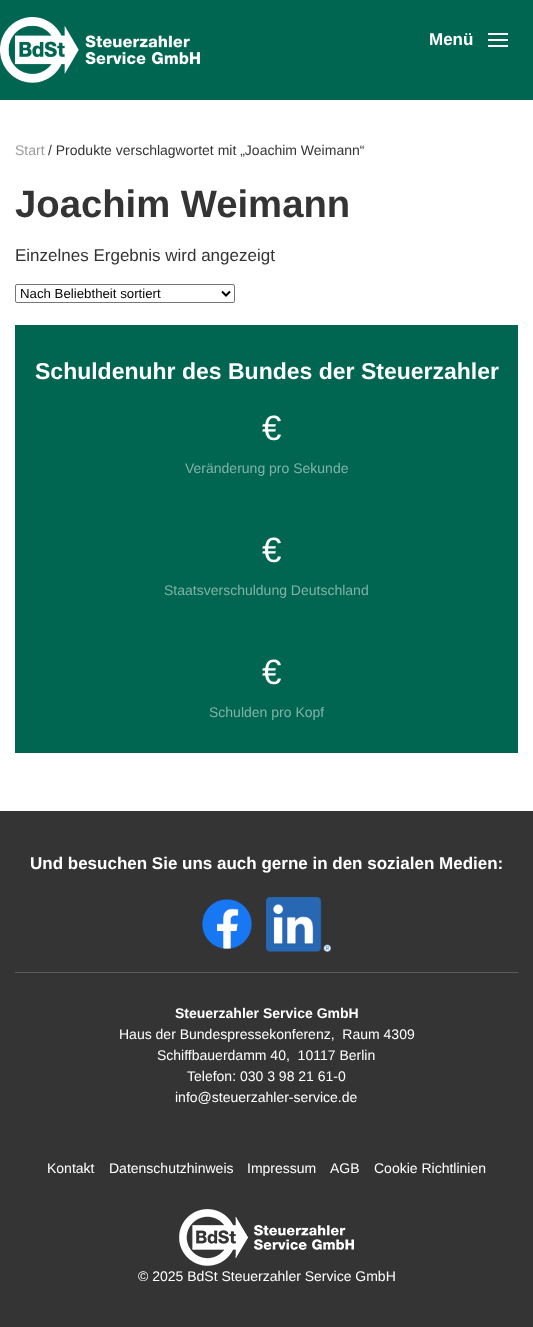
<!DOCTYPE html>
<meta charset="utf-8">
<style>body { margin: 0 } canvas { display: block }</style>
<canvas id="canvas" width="533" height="1327"></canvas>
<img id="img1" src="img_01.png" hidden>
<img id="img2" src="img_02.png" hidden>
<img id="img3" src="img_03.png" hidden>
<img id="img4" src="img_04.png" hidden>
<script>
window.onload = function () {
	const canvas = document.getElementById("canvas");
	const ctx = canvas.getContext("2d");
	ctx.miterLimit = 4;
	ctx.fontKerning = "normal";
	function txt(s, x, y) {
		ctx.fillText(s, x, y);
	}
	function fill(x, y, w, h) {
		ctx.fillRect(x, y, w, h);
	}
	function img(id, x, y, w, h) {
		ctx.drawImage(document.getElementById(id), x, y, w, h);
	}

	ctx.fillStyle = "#FFFFFF";
	fill(0, 0, 533, 1327);
	ctx.fillStyle = "#006651";
	fill(0, 0, 533, 100);
	img("img1", 0, 17, 200, 66);
	ctx.fillStyle = "#FFFFFF";
	fill(488, 33, 20, 2);
	fill(488, 39, 20, 2);
	fill(488, 45, 20, 2);
	ctx.beginPath();
	ctx.roundRect(15.5, 284.5, 219, 18, 1.5);
	ctx.strokeStyle = "#767676";
	ctx.stroke();
	ctx.beginPath();
	ctx.moveTo(222, 291.5);
	ctx.lineTo(226, 295.5);
	ctx.lineTo(230, 291.5);
	ctx.strokeStyle = "#000000";
	ctx.lineWidth = 2;
	ctx.stroke();
	ctx.fillStyle = "#006651";
	fill(15, 325, 503, 428);
	ctx.fillStyle = "#343434";
	fill(0, 811, 533, 516);
	img("img2", 202, 899, 50, 50);
	img("img3", 266, 897, 65, 55);
	ctx.fillStyle = "#5D5D5D";
	fill(15, 972, 503, 1);
	img("img4", 179, 1209, 175, 57);
	ctx.font = "bold 17px Liberation Sans";
	ctx.fillStyle = "#FFFFFF";
	txt("Menü", 429, 45);
	ctx.font = "14px Liberation Sans";
	ctx.fillStyle = "#9B9B9B";
	txt("Start", 15, 155);
	ctx.fillStyle = "#343434";
	txt("/ Produkte verschlagwortet mit „Joachim Weimann“", 48, 155);
	ctx.font = "bold 38.25px Liberation Sans";
	txt("Joachim Weimann", 15, 217);
	ctx.font = "17px Liberation Sans";
	txt("Einzelnes Ergebnis wird angezeigt", 15, 261);
	ctx.font = "13.25px Liberation Sans";
	ctx.fillStyle = "#000000";
	txt("Nach Beliebtheit sortiert", 20, 298);
	ctx.font = "bold 23px Liberation Sans";
	ctx.fillStyle = "#FFFFFF";
	txt("Schuldenuhr des Bundes der Steuerzahler", 35, 379);
	ctx.font = "35px Liberation Sans";
	txt("€", 262, 440);
	ctx.font = "14px Liberation Sans";
	ctx.fillStyle = "#80B3A8";
	txt("Veränderung pro Sekunde", 185, 473);
	ctx.font = "35px Liberation Sans";
	ctx.fillStyle = "#FFFFFF";
	txt("€", 262, 562);
	ctx.font = "14px Liberation Sans";
	ctx.fillStyle = "#80B3A8";
	txt("Staatsverschuldung Deutschland", 164, 595);
	ctx.font = "35px Liberation Sans";
	ctx.fillStyle = "#FFFFFF";
	txt("€", 262, 684);
	ctx.font = "14px Liberation Sans";
	ctx.fillStyle = "#80B3A8";
	txt("Schulden pro Kopf", 209, 717);
	ctx.font = "bold 17px Liberation Sans";
	ctx.fillStyle = "#FFFFFF";
	txt("Und besuchen Sie uns auch gerne in den sozialen Medien:", 30, 869);
	ctx.font = "bold 14px Liberation Sans";
	txt("Steuerzahler Service GmbH", 175, 1018);
	ctx.font = "14px Liberation Sans";
	txt("Haus der Bundespressekonferenz,  Raum 4309", 119, 1039);
	txt("Schiffbauerdamm 40,  10117 Berlin", 157, 1060);
	txt("Telefon: 030 3 98 21 61-0", 187, 1081);
	txt("info@steuerzahler-service.de", 175, 1102);
	txt("Kontakt", 47, 1173);
	txt("Datenschutzhinweis", 109, 1173);
	txt("Impressum", 247, 1173);
	txt("AGB", 330, 1173);
	txt("Cookie Richtlinien", 374, 1173);
	txt("© 2025 BdSt Steuerzahler Service GmbH", 138, 1281);
};
</script>
